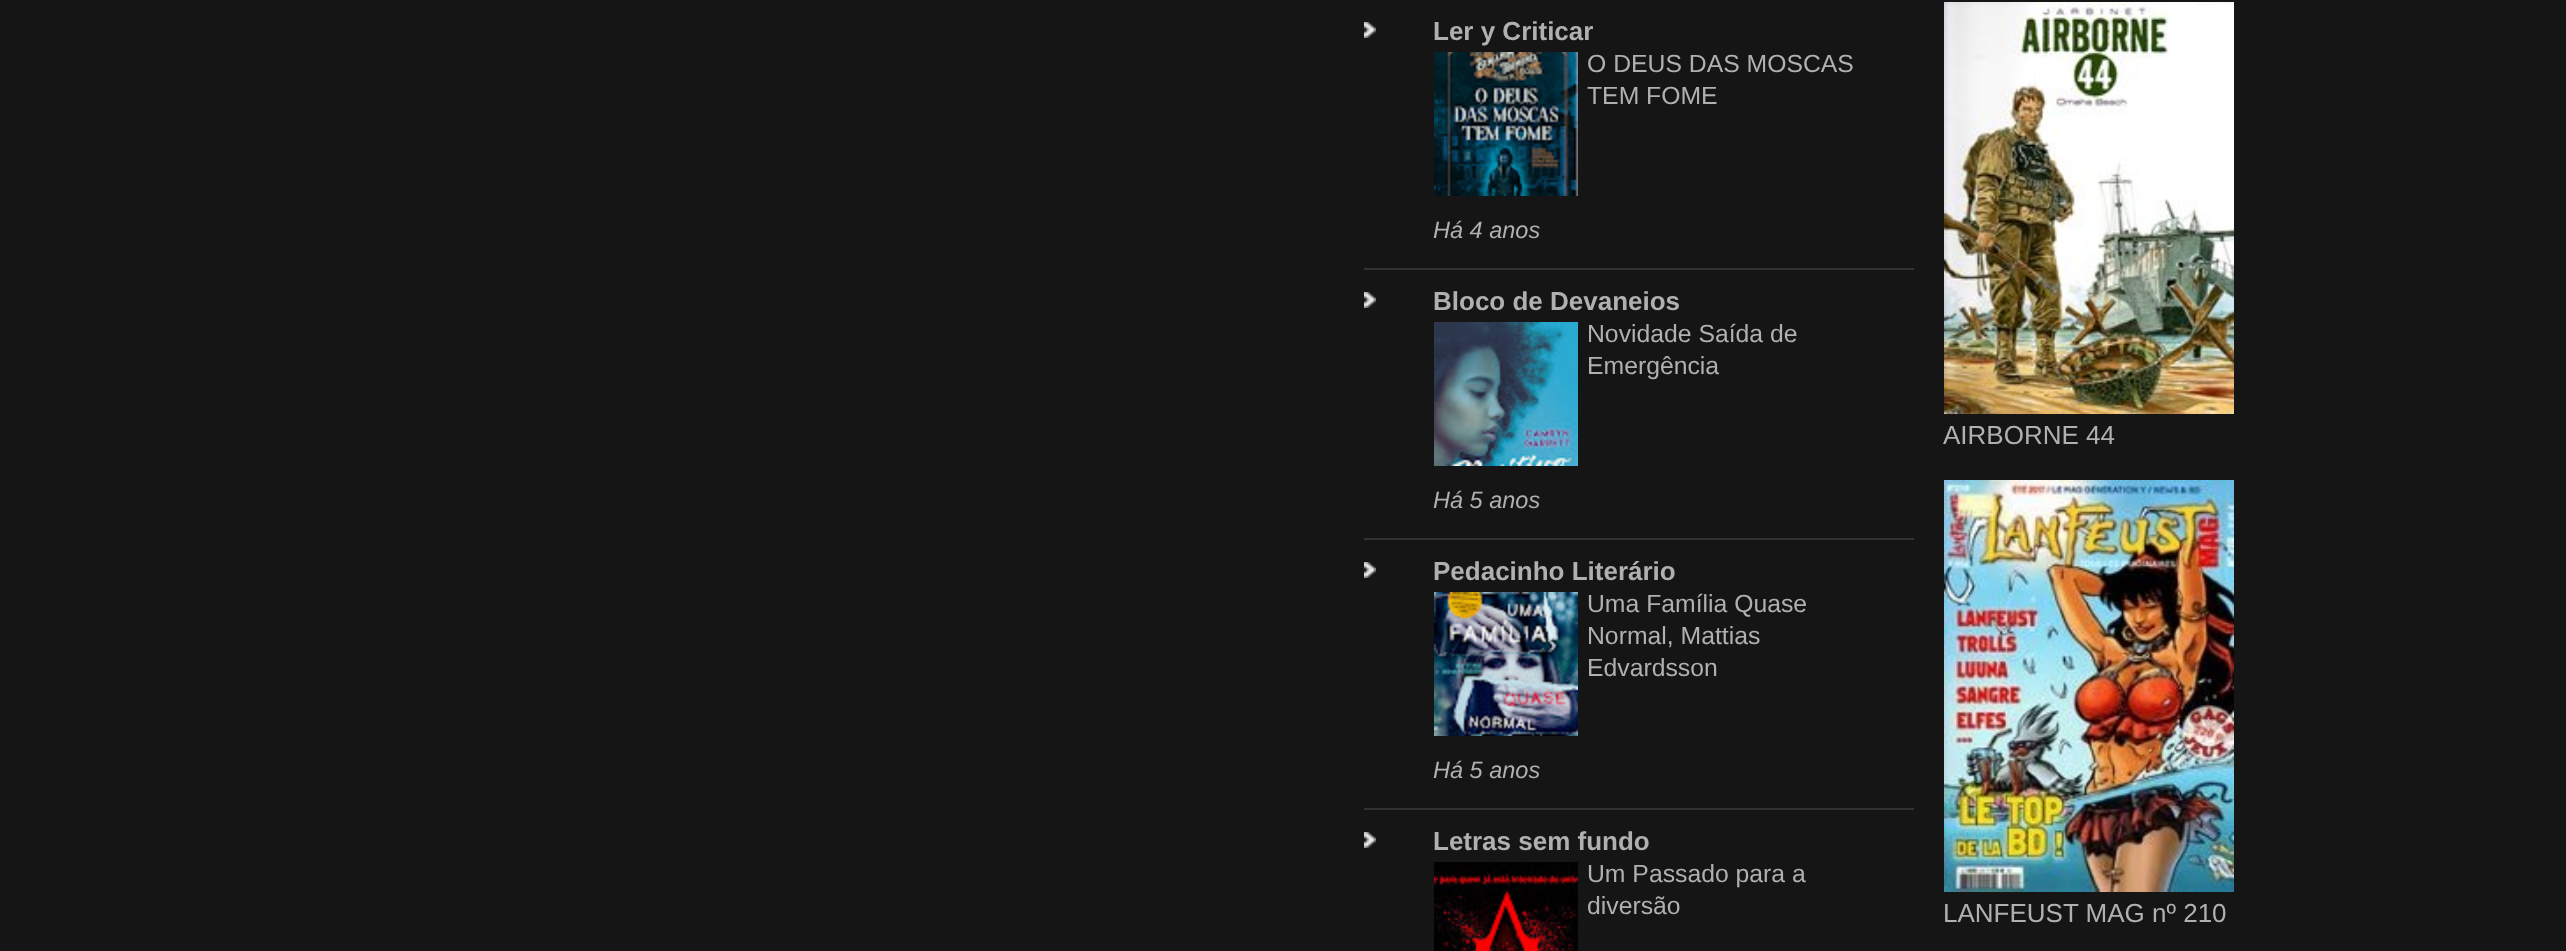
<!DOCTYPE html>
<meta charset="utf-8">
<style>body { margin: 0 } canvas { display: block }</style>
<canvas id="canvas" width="2566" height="951"></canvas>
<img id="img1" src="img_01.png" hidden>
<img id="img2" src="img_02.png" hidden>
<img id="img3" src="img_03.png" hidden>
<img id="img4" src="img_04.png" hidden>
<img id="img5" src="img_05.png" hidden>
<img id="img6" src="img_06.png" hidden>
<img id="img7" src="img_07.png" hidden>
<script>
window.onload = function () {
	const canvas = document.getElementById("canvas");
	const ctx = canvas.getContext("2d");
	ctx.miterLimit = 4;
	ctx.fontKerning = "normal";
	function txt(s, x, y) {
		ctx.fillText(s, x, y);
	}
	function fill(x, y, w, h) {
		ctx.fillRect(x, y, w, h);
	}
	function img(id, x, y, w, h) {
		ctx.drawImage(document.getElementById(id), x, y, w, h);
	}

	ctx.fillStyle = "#151515";
	fill(0, 0, 2566, 951);
	img("img1", 1364, 22, 12, 16);
	ctx.fillStyle = "#313131";
	fill(1364, 268, 550, 2);
	img("img2", 1434, 52, 144, 144);
	img("img1", 1364, 292, 12, 16);
	fill(1364, 538, 550, 2);
	img("img3", 1434, 322, 144, 144);
	img("img1", 1364, 562, 12, 16);
	fill(1364, 808, 550, 2);
	img("img4", 1434, 592, 144, 144);
	img("img1", 1364, 832, 12, 16);
	img("img5", 1434, 862, 144, 89);
	img("img6", 1944, 2, 290, 412);
	img("img7", 1944, 480, 290, 412);
	ctx.font = "bold 26px Liberation Sans";
	ctx.fillStyle = "#B0B0B0";
	txt("Ler y Criticar", 1433, 40);
	ctx.font = "24.75px Liberation Sans";
	txt("O DEUS DAS MOSCAS", 1587, 72);
	txt("TEM FOME", 1587, 104);
	ctx.font = "italic 23.5px Liberation Sans";
	txt("Há 4 anos", 1433, 238);
	ctx.font = "bold 26px Liberation Sans";
	txt("Bloco de Devaneios", 1433, 310);
	ctx.font = "24.75px Liberation Sans";
	txt("Novidade Saída de", 1587, 342);
	txt("Emergência", 1587, 374);
	ctx.font = "italic 23.5px Liberation Sans";
	txt("Há 5 anos", 1433, 508);
	ctx.font = "bold 26px Liberation Sans";
	txt("Pedacinho Literário", 1433, 580);
	ctx.font = "24.75px Liberation Sans";
	txt("Uma Família Quase", 1587, 612);
	txt("Normal, Mattias", 1587, 644);
	txt("Edvardsson", 1587, 676);
	ctx.font = "italic 23.5px Liberation Sans";
	txt("Há 5 anos", 1433, 778);
	ctx.font = "bold 26px Liberation Sans";
	txt("Letras sem fundo", 1433, 850);
	ctx.font = "24.75px Liberation Sans";
	txt("Um Passado para a", 1587, 882);
	txt("diversão", 1587, 914);
	ctx.font = "26px Liberation Sans";
	txt("AIRBORNE 44", 1943, 444);
	txt("LANFEUST MAG nº 210", 1943, 922);
};
</script>
